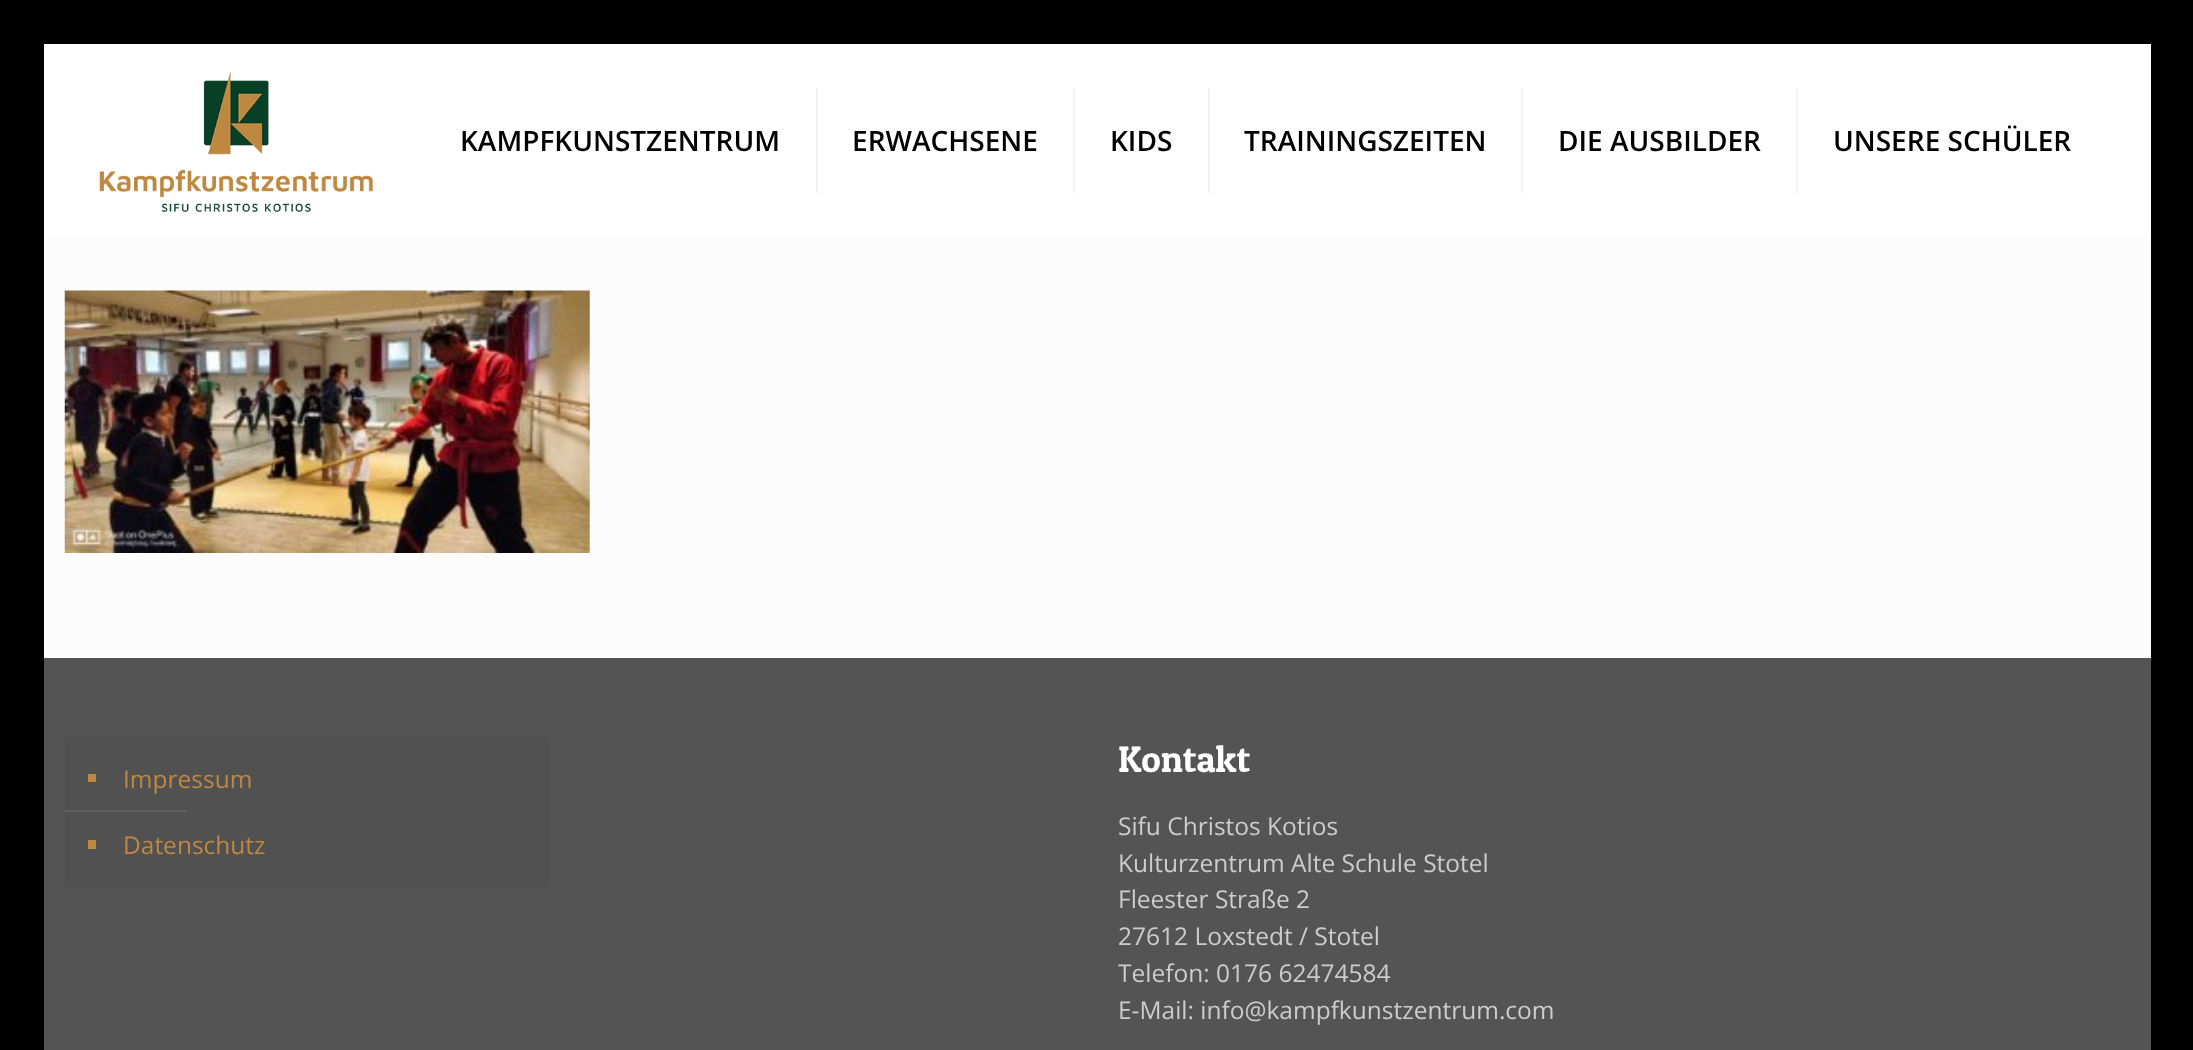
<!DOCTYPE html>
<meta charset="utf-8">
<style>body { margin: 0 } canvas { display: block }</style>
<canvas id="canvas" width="2193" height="1050"></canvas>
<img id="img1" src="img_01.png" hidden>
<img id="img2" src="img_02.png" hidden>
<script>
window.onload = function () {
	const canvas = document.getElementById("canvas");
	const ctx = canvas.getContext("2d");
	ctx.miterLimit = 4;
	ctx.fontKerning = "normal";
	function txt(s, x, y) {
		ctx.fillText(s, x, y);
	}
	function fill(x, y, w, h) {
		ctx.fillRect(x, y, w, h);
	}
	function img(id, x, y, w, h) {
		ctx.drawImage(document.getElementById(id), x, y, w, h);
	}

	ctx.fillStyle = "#000000";
	fill(0, 0, 2193, 1050);
	ctx.fillStyle = "#FCFCFC";
	fill(44, 238, 2107, 420);
	ctx.fillStyle = "#FFFFFF";
	fill(44, 44, 2107, 194);
	img("img1", 99, 71, 274, 141);
	ctx.fillStyle = "#F2F2F2";
	fill(816, 88, 2, 105);
	fill(1073, 88, 2, 105);
	fill(1208, 88, 2, 105);
	fill(1521, 88, 2, 105);
	fill(1796, 88, 2, 105);
	img("img2", 64, 290, 526, 263);
	ctx.fillStyle = "#545454";
	fill(44, 658, 2107, 392);
	ctx.fillStyle = "#515151";
	fill(65, 737, 485, 150);
	ctx.fillStyle = "#BE8840";
	fill(88, 774, 8, 8);
	ctx.fillStyle = "#5F5F5F";
	fill(65, 810, 122, 2);
	ctx.fillStyle = "#BE8840";
	fill(88, 840, 8, 9);
	ctx.font = "600 28px Open Sans";
	ctx.fillStyle = "#000000";
	txt("KAMPFKUNSTZENTRUM", 460, 151);
	txt("ERWACHSENE", 852, 151);
	txt("KIDS", 1110, 151);
	txt("TRAININGSZEITEN", 1244, 151);
	txt("DIE AUSBILDER", 1558, 151);
	txt("UNSERE SCHÜLER", 1833, 151);
	ctx.font = "24.5px Open Sans";
	ctx.fillStyle = "#BE8840";
	txt("Impressum", 123, 788);
	txt("Datenschutz", 123, 854);
	ctx.font = "37px Patua One";
	ctx.fillStyle = "#FFFFFF";
	txt("Kontakt", 1118, 772);
	ctx.font = "24.5px Open Sans";
	ctx.fillStyle = "#CCCCCC";
	txt("Sifu Christos Kotios", 1118, 835);
	txt("Kulturzentrum Alte Schule Stotel", 1118, 872);
	txt("Fleester Straße 2", 1118, 908);
	txt("27612 Loxstedt / Stotel", 1118, 945);
	txt("Telefon: 0176 62474584", 1118, 982);
	txt("E-Mail: info@kampfkunstzentrum.com", 1118, 1019);
};
</script>
